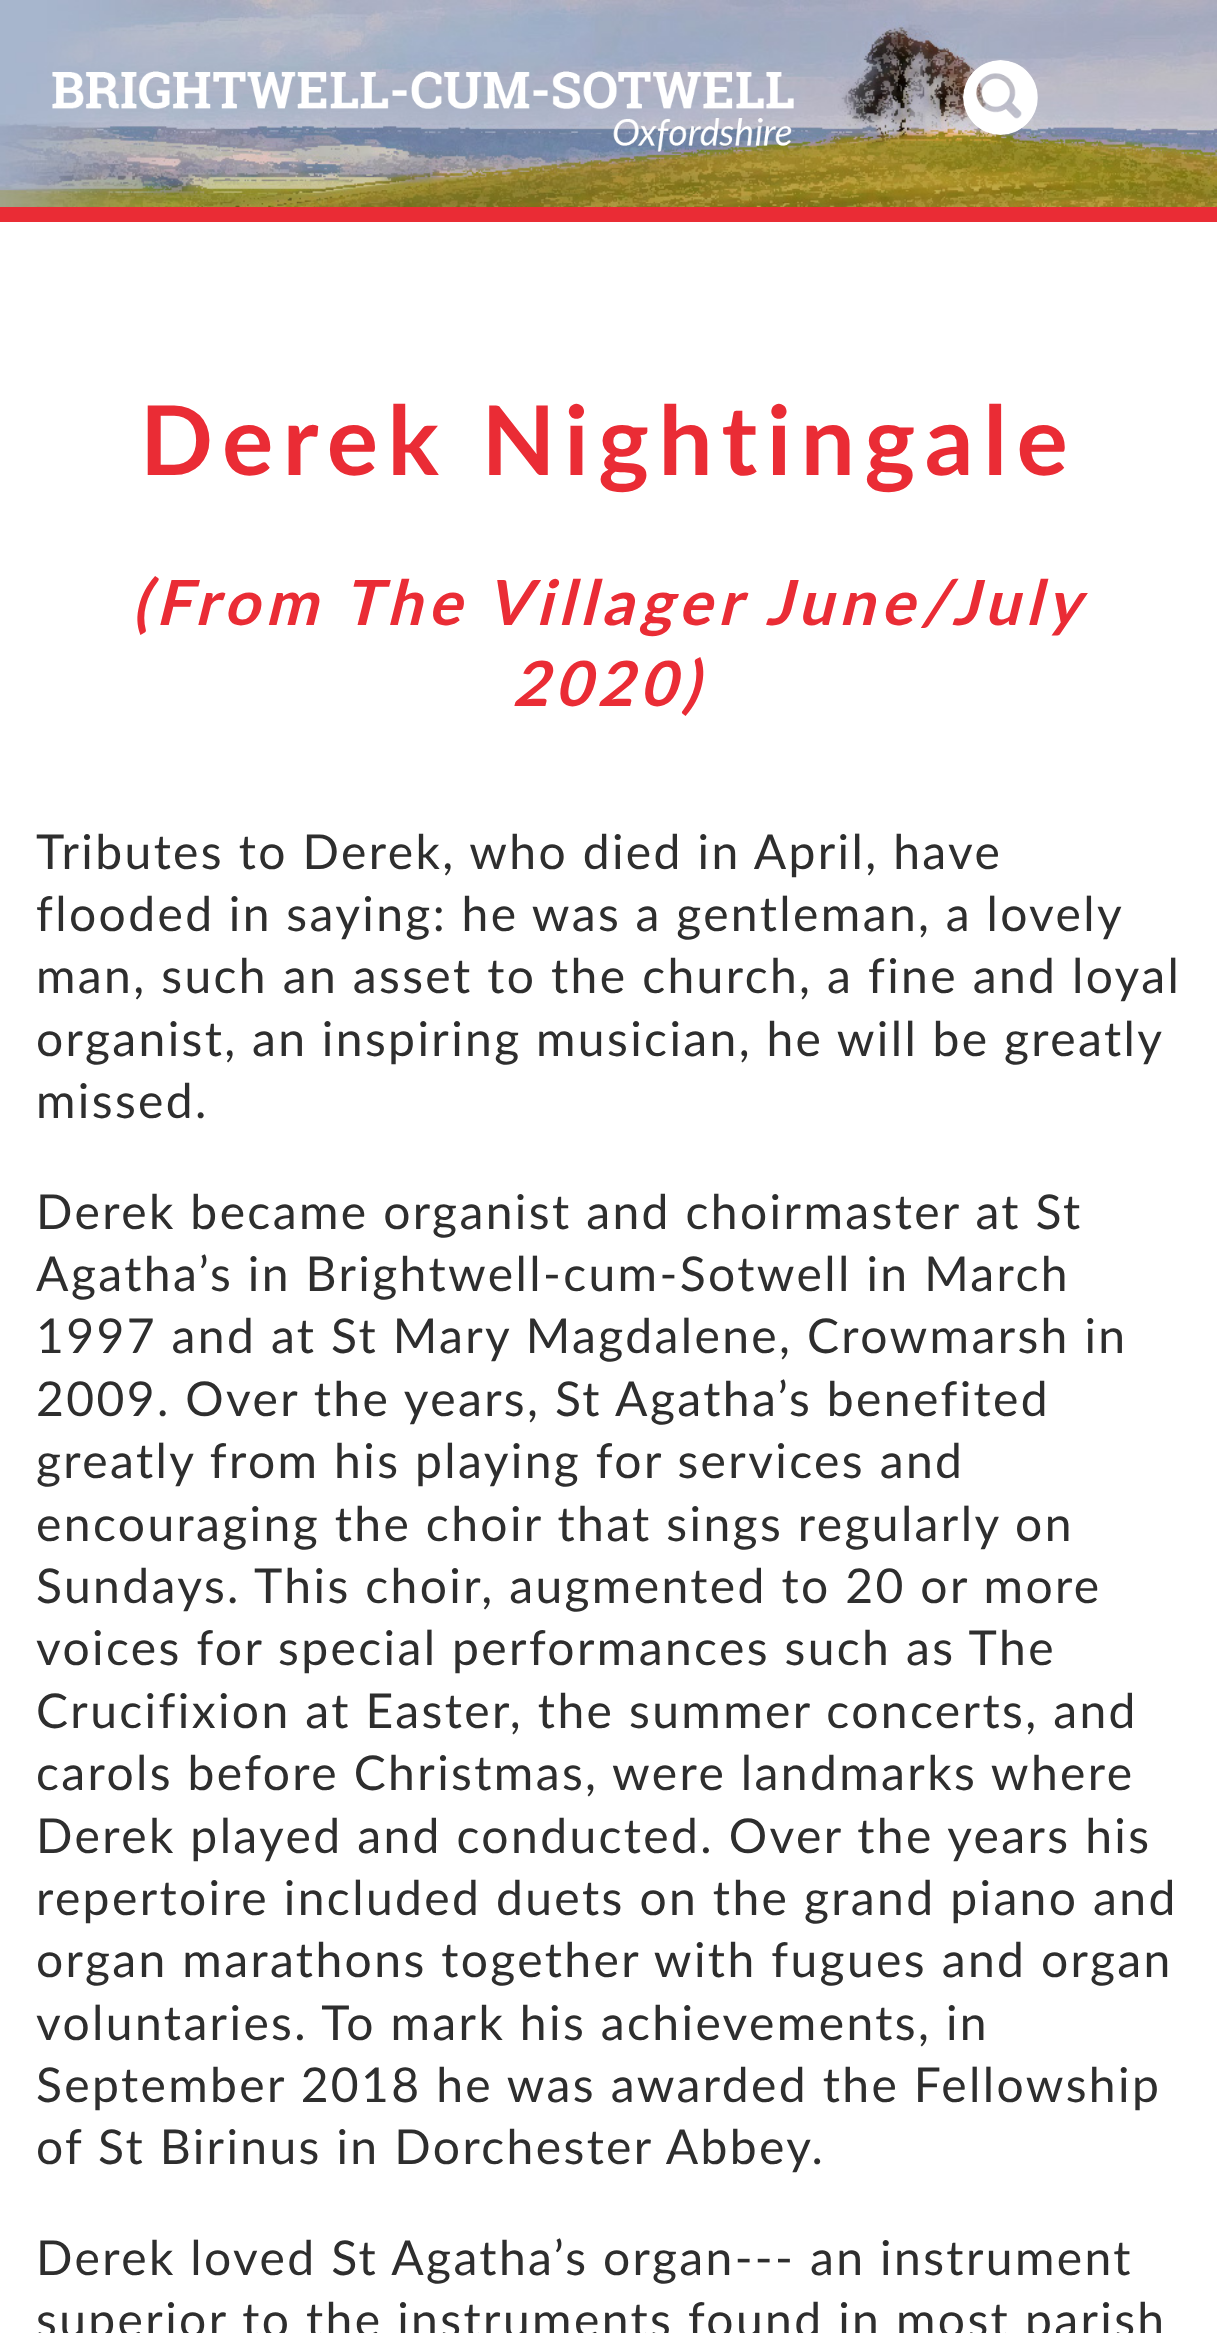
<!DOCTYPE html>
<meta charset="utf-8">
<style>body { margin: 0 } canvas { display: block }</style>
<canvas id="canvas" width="1217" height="2333"></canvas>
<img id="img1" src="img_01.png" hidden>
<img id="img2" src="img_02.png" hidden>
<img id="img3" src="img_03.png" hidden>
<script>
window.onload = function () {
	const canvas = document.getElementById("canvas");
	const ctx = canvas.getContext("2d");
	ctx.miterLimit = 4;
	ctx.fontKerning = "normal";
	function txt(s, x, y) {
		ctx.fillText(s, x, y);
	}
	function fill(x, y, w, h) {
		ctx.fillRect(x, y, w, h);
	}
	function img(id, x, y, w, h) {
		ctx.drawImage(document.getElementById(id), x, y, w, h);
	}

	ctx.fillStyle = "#FFFFFF";
	fill(0, 0, 1217, 2333);
	img("img1", 0, 0, 1217, 207);
	ctx.fillStyle = "#EA2C35";
	fill(0, 207, 1217, 15);
	img("img2", 52, 71, 742, 81);
	img("img3", 963, 60, 75, 75);
	ctx.letterSpacing = "9.6px";
	ctx.font = "bold 96px Lato";
	txt("Derek Nightingale", 140, 475);
	ctx.letterSpacing = "6.25px";
	ctx.font = "italic bold 62.4px Lato";
	txt("(From The Villager June/July", 132, 625);
	txt("2020)", 512, 706);
	ctx.letterSpacing = "2.4px";
	ctx.font = "48px Lato";
	ctx.fillStyle = "#2E2E2E";
	txt("Tributes to Derek, who died in April, have", 36, 869);
	ctx.wordSpacing = "-0.25px";
	txt("flooded in saying: he was a gentleman, a lovely", 36, 931);
	ctx.wordSpacing = "0px";
	txt("man, such an asset to the church, a fine and loyal", 36, 993);
	ctx.wordSpacing = "-0.25px";
	txt("organist, an inspiring musician, he will be greatly", 36, 1056);
	ctx.wordSpacing = "0px";
	txt("missed.", 36, 1118);
	txt("Derek became organist and choirmaster at St", 36, 1229);
	txt("Agatha’s in Brightwell-cum-Sotwell in March", 36, 1291);
	txt("1997 and at St Mary Magdalene, Crowmarsh in", 36, 1353);
	txt("2009. Over the years, St Agatha’s benefited", 36, 1416);
	txt("greatly from his playing for services and", 36, 1478);
	txt("encouraging the choir that sings regularly on", 36, 1541);
	txt("Sundays. This choir, augmented to 20 or more", 36, 1603);
	txt("voices for special performances such as The", 36, 1665);
	txt("Crucifixion at Easter, the summer concerts, and", 36, 1728);
	txt("carols before Christmas, were landmarks where", 36, 1790);
	txt("Derek played and conducted. Over the years his", 36, 1853);
	txt("repertoire included duets on the grand piano and", 36, 1915);
	txt("organ marathons together with fugues and organ", 36, 1977);
	txt("voluntaries. To mark his achievements, in", 36, 2040);
	txt("September 2018 he was awarded the Fellowship", 36, 2102);
	txt("of St Birinus in Dorchester Abbey.", 36, 2164);
	txt("Derek loved St Agatha’s organ--- an instrument", 36, 2275);
	txt("superior to the instruments found in most parish", 36, 2337);
};
</script>
